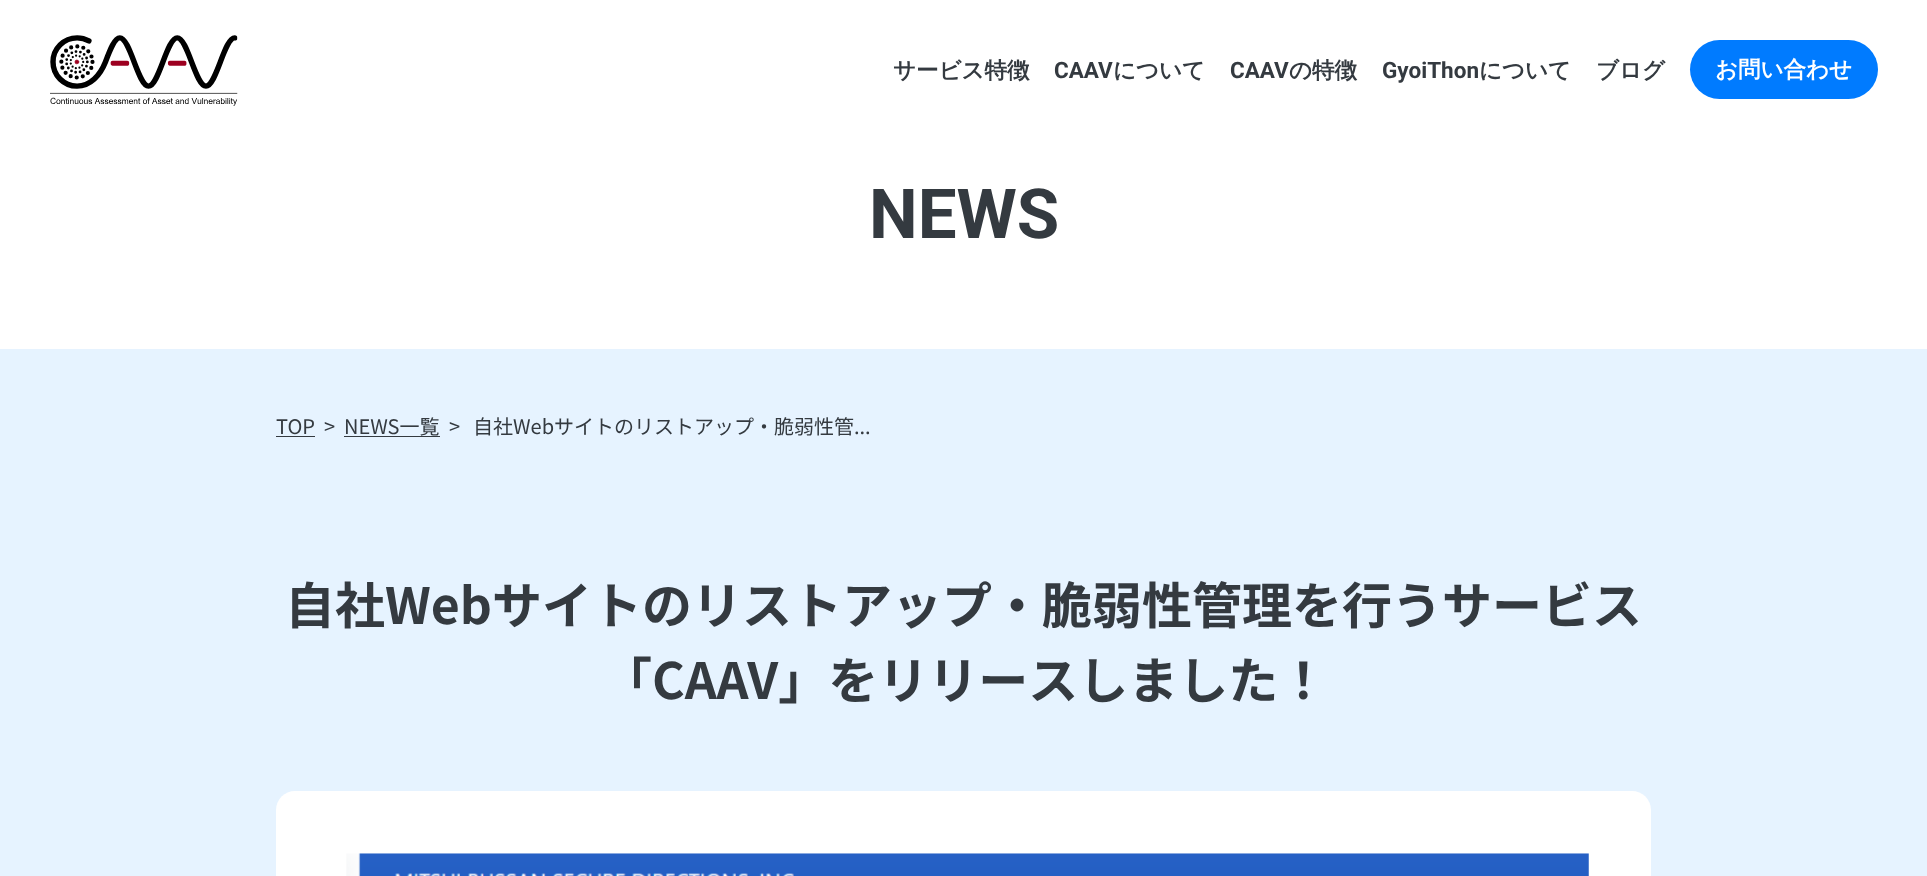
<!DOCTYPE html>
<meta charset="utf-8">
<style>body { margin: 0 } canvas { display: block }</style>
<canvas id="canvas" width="1927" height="876"></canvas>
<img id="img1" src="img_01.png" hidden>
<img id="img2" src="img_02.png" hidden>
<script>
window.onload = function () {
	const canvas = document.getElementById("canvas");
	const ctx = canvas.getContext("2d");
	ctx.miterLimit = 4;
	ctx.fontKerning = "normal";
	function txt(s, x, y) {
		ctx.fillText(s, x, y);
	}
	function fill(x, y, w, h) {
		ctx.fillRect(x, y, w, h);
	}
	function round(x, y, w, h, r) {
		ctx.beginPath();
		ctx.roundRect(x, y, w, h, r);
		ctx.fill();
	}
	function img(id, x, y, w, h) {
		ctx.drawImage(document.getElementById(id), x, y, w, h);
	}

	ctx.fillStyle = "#FFFFFF";
	fill(0, 0, 1927, 876);
	img("img1", 50, 35, 188, 71);
	ctx.fillStyle = "#007BFF";
	round(1690, 40, 188, 59, 29.5);
	ctx.fillStyle = "#E6F3FF";
	fill(0, 349, 1927, 527);
	ctx.fillStyle = "#343A40";
	fill(276, 436, 39, 1);
	fill(344, 436, 96, 1);
	ctx.fillStyle = "#FFFFFF";
	round(276, 791, 1375, 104, 19);
	img("img2", 346, 853, 1243, 23);
	ctx.font = "bold 22.5px WenQuanYi Zen Hei";
	ctx.fillStyle = "#343A40";
	txt("サービス特徴", 893, 78);
	ctx.font = "bold 22.5px Roboto";
	txt("CAAV", 1054, 78);
	ctx.font = "bold 22.5px WenQuanYi Zen Hei";
	txt("について", 1113, 78);
	ctx.font = "bold 22.5px Roboto";
	txt("CAAV", 1230, 78);
	ctx.font = "bold 22.5px WenQuanYi Zen Hei";
	txt("の特徴", 1289, 78);
	ctx.font = "bold 22.5px Roboto";
	txt("GyoiThon", 1382, 78);
	ctx.font = "bold 22.5px WenQuanYi Zen Hei";
	txt("について", 1479, 78);
	txt("ブログ", 1596, 78);
	ctx.fillStyle = "#FFFFFF";
	txt("お問い合わせ", 1715, 77);
	ctx.font = "bold 69px Roboto";
	ctx.fillStyle = "#343A40";
	txt("NEWS", 869, 238);
	ctx.font = "20px Noto Sans JP";
	txt("TOP", 276, 434);
	txt(">", 324, 434);
	txt("NEWS一覧", 344, 434);
	txt(">", 449, 434);
	txt("自社Webサイトのリストアップ・脆弱性管...", 473, 434);
	ctx.font = "bold 50px Noto Sans JP";
	txt("自社Webサイトのリストアップ・脆弱性管理を行うサービス", 285, 624);
	txt("「CAAV」をリリースしました！", 602, 699);
};
</script>
